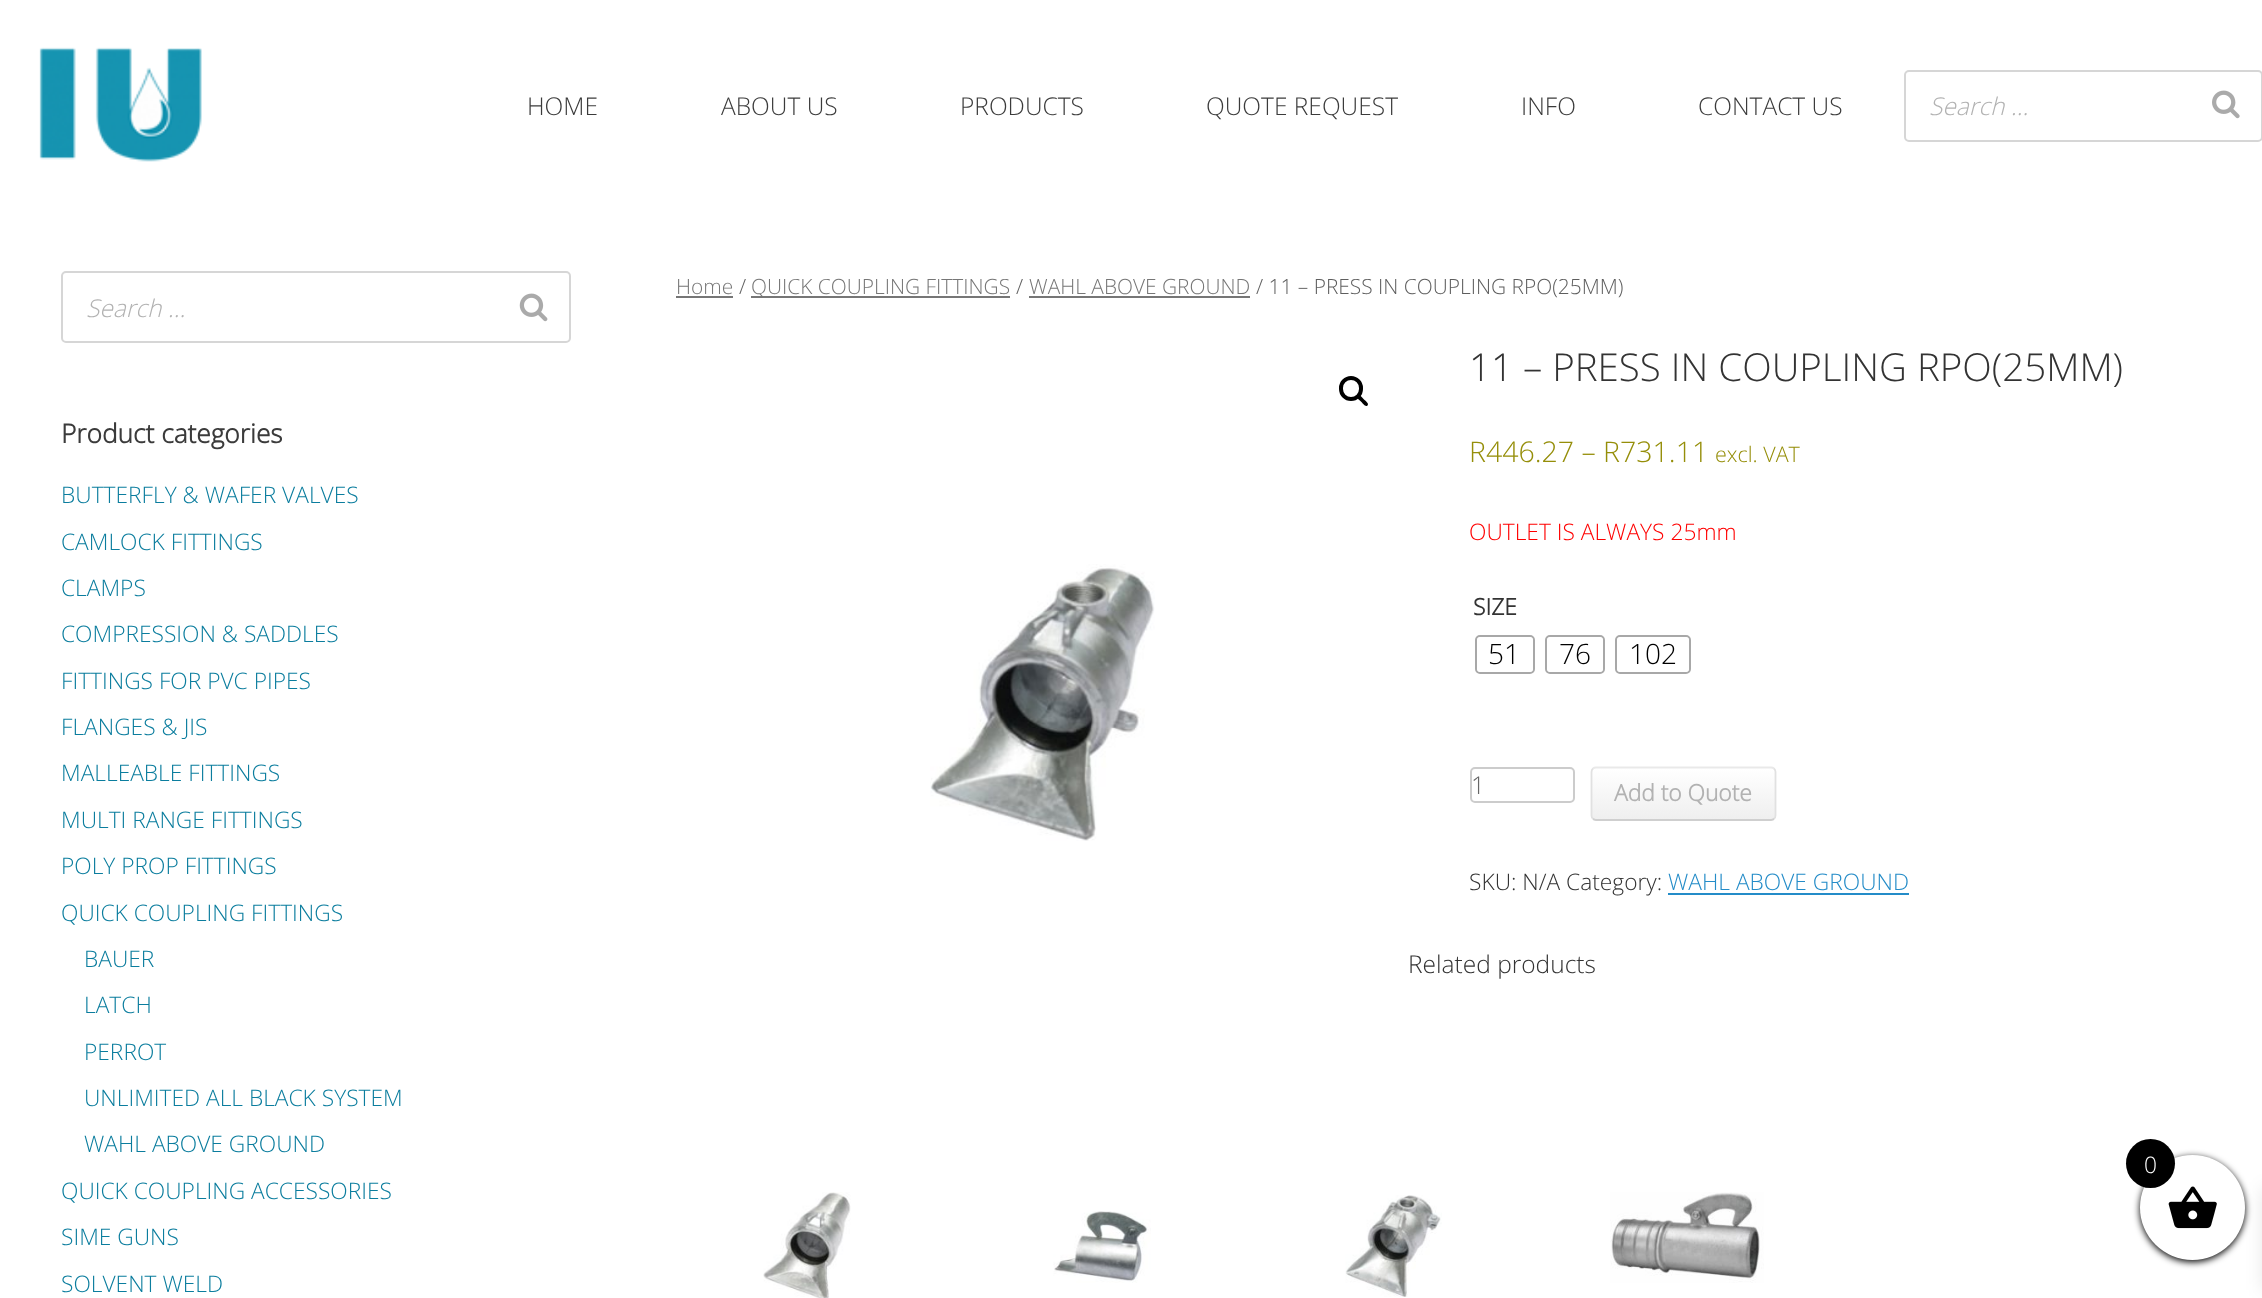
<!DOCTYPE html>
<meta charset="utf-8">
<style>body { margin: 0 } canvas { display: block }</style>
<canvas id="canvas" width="2262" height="1298"></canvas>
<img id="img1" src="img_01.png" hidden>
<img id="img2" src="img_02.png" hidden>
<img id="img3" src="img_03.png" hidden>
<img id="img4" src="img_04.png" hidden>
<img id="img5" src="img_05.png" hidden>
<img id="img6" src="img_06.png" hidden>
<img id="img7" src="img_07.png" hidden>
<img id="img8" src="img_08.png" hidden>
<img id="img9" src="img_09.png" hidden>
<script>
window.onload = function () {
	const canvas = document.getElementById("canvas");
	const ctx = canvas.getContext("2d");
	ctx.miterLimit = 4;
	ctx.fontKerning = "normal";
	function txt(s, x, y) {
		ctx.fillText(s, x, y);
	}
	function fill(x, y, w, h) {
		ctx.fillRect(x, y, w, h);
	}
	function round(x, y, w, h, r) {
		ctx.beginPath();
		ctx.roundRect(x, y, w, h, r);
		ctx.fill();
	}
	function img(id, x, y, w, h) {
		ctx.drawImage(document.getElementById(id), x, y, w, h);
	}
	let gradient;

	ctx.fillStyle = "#FFFFFF";
	fill(0, 0, 2262, 1298);
	img("img1", 39, 47, 163, 115);
	ctx.beginPath();
	ctx.roundRect(1905, 71, 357, 70, 4);
	ctx.strokeStyle = "#D6D6D6";
	ctx.lineWidth = 2;
	ctx.stroke();
	img("img2", 2212, 90, 28, 29);
	ctx.beginPath();
	ctx.roundRect(62, 272, 508, 70, 4);
	ctx.stroke();
	img("img3", 519, 293, 29, 29);
	ctx.fillStyle = "#767676";
	fill(676, 296, 57, 2);
	fill(751, 296, 259, 2);
	fill(1029, 296, 221, 2);
	ctx.beginPath();
	ctx.roundRect(1341, 378, 20, 21, 10);
	ctx.strokeStyle = "#000000";
	ctx.lineWidth = 4;
	ctx.stroke();
	ctx.fillStyle = "#000000";
	ctx.beginPath();
	ctx.moveTo(1357.5, 395.5);
	ctx.bezierCurveTo(1359.5, 393.5, 1363, 398.5, 1364, 399.5);
	ctx.bezierCurveTo(1365, 400.5, 1369.5, 403.5, 1367.5, 405.5);
	ctx.bezierCurveTo(1365.5, 407.5, 1362.5, 403, 1361.5, 402);
	ctx.bezierCurveTo(1360.5, 401, 1355.5, 397.5, 1357.5, 395.5);
	ctx.closePath();
	ctx.fill();
	img("img4", 930, 564, 225, 277);
	ctx.beginPath();
	ctx.roundRect(1476, 636, 58, 37, 4);
	ctx.strokeStyle = "#A8A8A8";
	ctx.lineWidth = 2;
	ctx.stroke();
	ctx.fillStyle = "#FFFFFF";
	round(1477, 637, 56, 35, 4);
	ctx.beginPath();
	ctx.roundRect(1546, 636, 58, 37, 4);
	ctx.stroke();
	round(1547, 637, 56, 35, 4);
	ctx.beginPath();
	ctx.roundRect(1616, 636, 74, 37, 4);
	ctx.stroke();
	round(1617, 637, 72, 35, 4);
	ctx.beginPath();
	ctx.roundRect(1471, 768, 103, 34, 4);
	ctx.strokeStyle = "#CCCCCC";
	ctx.stroke();
	ctx.save();
	ctx.beginPath();
	ctx.roundRect(1591, 767, 185, 54, 5);
	ctx.clip();
	gradient = ctx.createLinearGradient(1593, 819, 1593, 768);
	gradient.addColorStop(0, "#EFEFEF");
	gradient.addColorStop(1, "#FFFFFF");
	ctx.fillStyle = gradient;
	fill(1591, 768, 185, 51);
	ctx.restore();
	ctx.beginPath();
	ctx.moveTo(1593, 768.5);
	ctx.bezierCurveTo(1593.5, 768, 1595, 767.5, 1596, 767.5);
	ctx.lineTo(1771, 767.5);
	ctx.bezierCurveTo(1772, 767.5, 1773.5, 768, 1774, 768.5);
	ctx.strokeStyle = "#E9E9E9";
	ctx.lineWidth = 1.8;
	ctx.stroke();
	ctx.beginPath();
	ctx.moveTo(1774, 768.5);
	ctx.bezierCurveTo(1775, 769.5, 1775.5, 770.5, 1775.5, 772);
	ctx.lineTo(1775.5, 815.5);
	ctx.bezierCurveTo(1775.5, 816.5, 1775, 818, 1774, 818.5);
	ctx.strokeStyle = "#E1E1E1";
	ctx.stroke();
	ctx.beginPath();
	ctx.moveTo(1774, 818.5);
	ctx.bezierCurveTo(1773.5, 819.5, 1772, 820, 1771, 820);
	ctx.lineTo(1596, 820);
	ctx.bezierCurveTo(1595, 820, 1593.5, 819.5, 1593, 818.5);
	ctx.strokeStyle = "#CFCFCF";
	ctx.stroke();
	ctx.beginPath();
	ctx.moveTo(1593, 818.5);
	ctx.bezierCurveTo(1592, 818, 1591.5, 816.5, 1591.5, 815.5);
	ctx.lineTo(1591.5, 772);
	ctx.bezierCurveTo(1591.5, 770.5, 1592, 769.5, 1593, 768.5);
	ctx.strokeStyle = "#E1E1E1";
	ctx.stroke();
	ctx.fillStyle = "#248CC8";
	fill(1668, 893, 241, 2);
	img("img5", 763, 1192, 88, 106);
	img("img6", 1053, 1211, 98, 72);
	img("img7", 1345, 1195, 97, 102);
	img("img8", 1610, 1192, 154, 91);
	ctx.fillStyle = "#000000";
	ctx.filter = "blur(3.5px)";
	ctx.beginPath();
	ctx.roundRect(2140, 1157, 105, 105, 52.5);
	ctx.fill();
	ctx.filter = "none";
	ctx.fillStyle = "rgba(0, 0, 0, 0.1)";
	ctx.filter = "blur(9px)";
	ctx.beginPath();
	ctx.rect(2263, 1188, 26, 102);
	ctx.fill();
	ctx.filter = "none";
	ctx.fillStyle = "#FFFFFF";
	ctx.beginPath();
	ctx.arc(2192.5, 1207.5, 52.5, 0, Math.PI * 2);
	ctx.fill();
	img("img9", 2168, 1186, 49, 43);
	ctx.fillStyle = "#000000";
	ctx.beginPath();
	ctx.arc(2150.5, 1163.5, 24.5, 0, Math.PI * 2);
	ctx.fill();
	ctx.font = "300 24.5px Open Sans";
	ctx.fillStyle = "#3B3B3B";
	txt("HOME", 527, 115);
	txt("ABOUT US", 721, 115);
	txt("PRODUCTS", 960, 115);
	txt("QUOTE REQUEST", 1206, 115);
	txt("INFO", 1521, 115);
	txt("CONTACT US", 1698, 115);
	ctx.font = "italic 300 24.5px Open Sans";
	ctx.fillStyle = "#B2B2B2";
	txt("Search …", 1929, 115);
	txt("Search …", 86, 317);
	ctx.font = "bold 26.25px Open Sans";
	ctx.fillStyle = "#3B3B3B";
	txt("Product categories", 61, 443);
	ctx.font = "300 22.75px Open Sans";
	ctx.fillStyle = "#0B7D9E";
	txt("BUTTERFLY & WAFER VALVES", 61, 503);
	txt("CAMLOCK FITTINGS", 61, 550);
	txt("CLAMPS", 61, 596);
	txt("COMPRESSION & SADDLES", 61, 642);
	txt("FITTINGS FOR PVC PIPES", 61, 689);
	txt("FLANGES & JIS", 61, 735);
	txt("MALLEABLE FITTINGS", 61, 781);
	txt("MULTI RANGE FITTINGS", 61, 828);
	txt("POLY PROP FITTINGS", 61, 874);
	txt("QUICK COUPLING FITTINGS", 61, 921);
	txt("BAUER", 84, 967);
	txt("LATCH", 84, 1013);
	txt("PERROT", 84, 1060);
	txt("UNLIMITED ALL BLACK SYSTEM", 84, 1106);
	txt("WAHL ABOVE GROUND", 84, 1152);
	txt("QUICK COUPLING ACCESSORIES", 61, 1199);
	txt("SIME GUNS", 61, 1245);
	txt("SOLVENT WELD", 61, 1292);
	ctx.font = "300 20.9px Open Sans";
	ctx.fillStyle = "#767676";
	txt("Home", 676, 294);
	ctx.fillStyle = "#5E5E5E";
	txt("/", 739, 294);
	ctx.fillStyle = "#767676";
	txt("QUICK COUPLING FITTINGS", 751, 294);
	ctx.fillStyle = "#5E5E5E";
	txt("/", 1016, 294);
	ctx.fillStyle = "#767676";
	txt("WAHL ABOVE GROUND", 1029, 294);
	ctx.fillStyle = "#5E5E5E";
	txt("/ 11 – PRESS IN COUPLING RPO(25MM)", 1256, 294);
	ctx.font = "300 38.5px Open Sans";
	ctx.fillStyle = "#333333";
	txt("11 – PRESS IN COUPLING RPO(25MM)", 1469, 381);
	ctx.font = "300 28.5px Open Sans";
	ctx.fillStyle = "#958E09";
	txt("R446.27 – R731.11", 1469, 462);
	ctx.font = "300 21.5px Open Sans";
	txt("excl. VAT", 1715, 462);
	ctx.font = "300 22.75px Open Sans";
	ctx.fillStyle = "#FF0000";
	txt("OUTLET IS ALWAYS 25mm", 1469, 540);
	ctx.font = "bold 22.75px Open Sans";
	ctx.fillStyle = "#333333";
	txt("SIZE", 1473, 615);
	ctx.font = "300 28px Open Sans";
	ctx.fillStyle = "#000000";
	txt("51", 1488, 664);
	txt("76", 1559, 664);
	txt("102", 1629, 664);
	ctx.font = "300 24.5px Open Sans";
	ctx.fillStyle = "#666666";
	txt("1", 1471, 794);
	ctx.font = "bold 22.75px Open Sans";
	ctx.fillStyle = "#B2B2B2";
	txt("Add to Quote", 1614, 801);
	ctx.font = "300 22.75px Open Sans";
	ctx.fillStyle = "#333333";
	txt("SKU: N/A Category:", 1469, 890);
	ctx.fillStyle = "#248CC8";
	txt("WAHL ABOVE GROUND", 1668, 890);
	ctx.font = "300 24.5px Open Sans";
	ctx.fillStyle = "#333333";
	txt("Related products", 1408, 973);
	ctx.font = "300 22.75px Open Sans";
	ctx.fillStyle = "#FFFFFF";
	txt("0", 2144, 1173);
};
</script>
